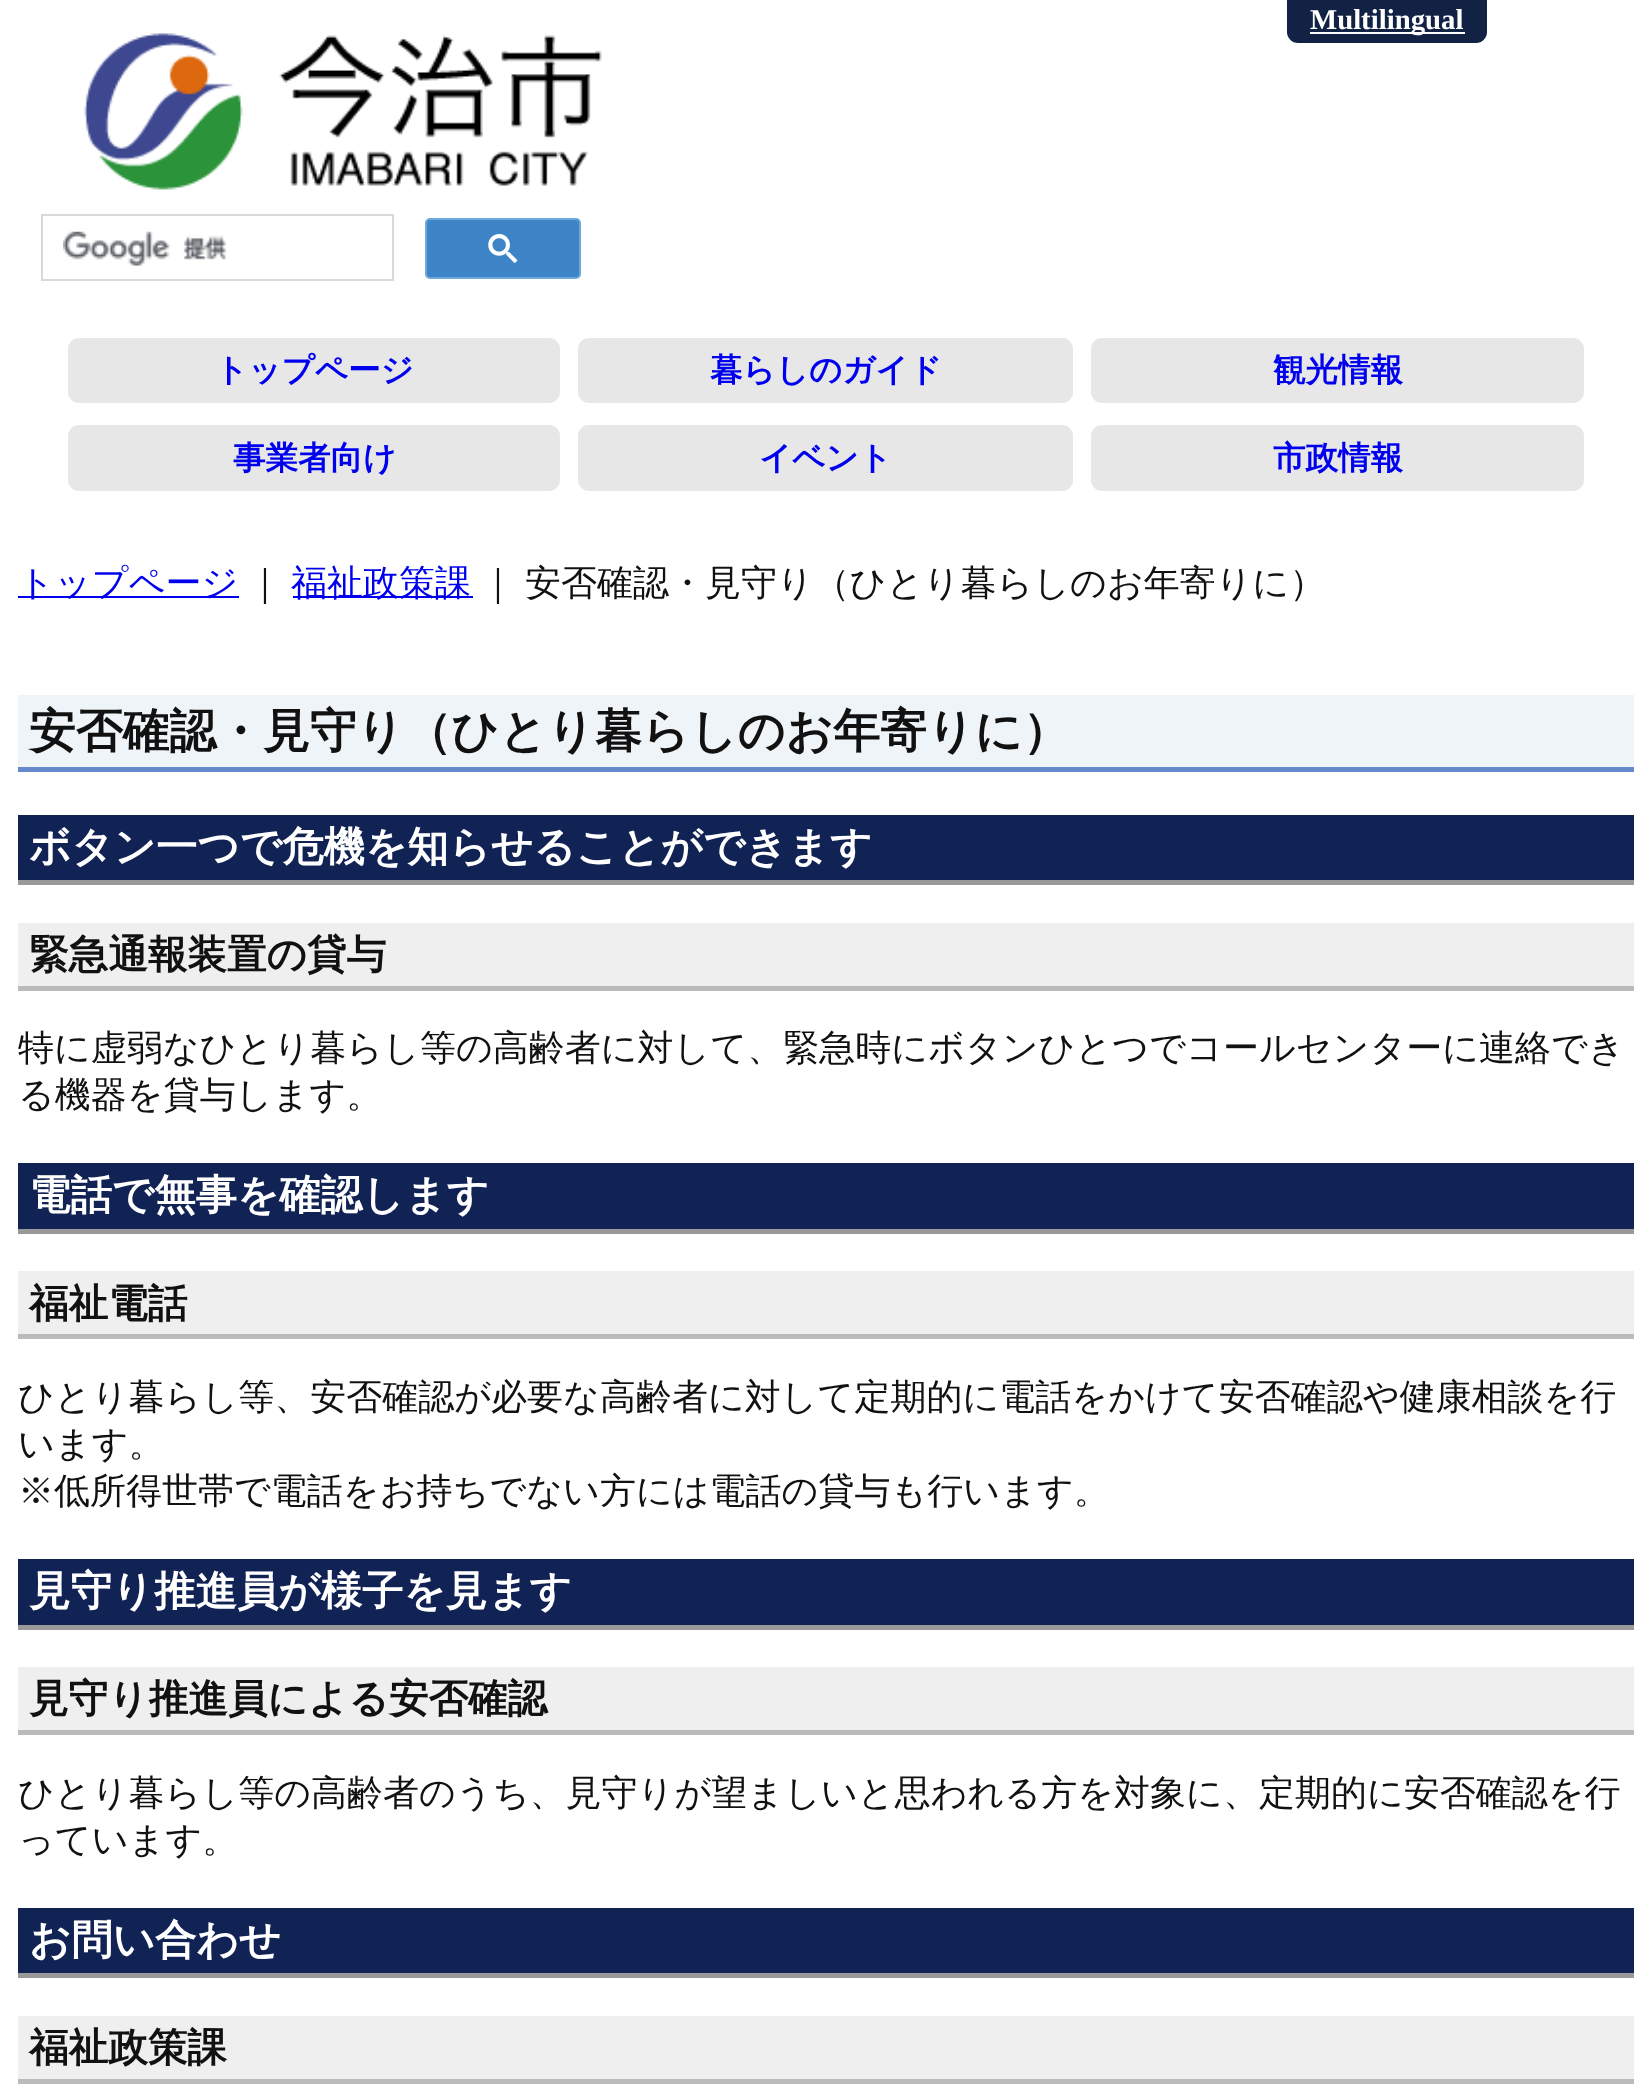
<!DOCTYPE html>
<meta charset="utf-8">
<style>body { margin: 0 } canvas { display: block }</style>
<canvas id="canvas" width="1650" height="2092"></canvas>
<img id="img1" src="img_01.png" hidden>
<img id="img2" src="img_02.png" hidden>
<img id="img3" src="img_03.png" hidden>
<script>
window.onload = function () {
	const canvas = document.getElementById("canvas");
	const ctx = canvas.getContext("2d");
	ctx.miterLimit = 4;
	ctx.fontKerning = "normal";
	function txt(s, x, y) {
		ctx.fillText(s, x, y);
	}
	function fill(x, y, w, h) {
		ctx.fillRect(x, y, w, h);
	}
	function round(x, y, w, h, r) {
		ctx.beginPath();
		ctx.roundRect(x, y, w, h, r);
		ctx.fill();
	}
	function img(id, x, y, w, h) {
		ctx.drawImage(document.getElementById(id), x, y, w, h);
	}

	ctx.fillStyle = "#FFFFFF";
	fill(0, 0, 1650, 2092);
	ctx.fillStyle = "#112244";
	ctx.beginPath();
	ctx.roundRect(1287, 0, 200, 43, [0, 0, 11, 11]);
	ctx.fill();
	ctx.fillStyle = "#FFFFFF";
	fill(1310, 32, 155, 2);
	img("img1", 84, 33, 518, 157);
	ctx.strokeStyle = "#D9D9D9";
	ctx.lineWidth = 2;
	ctx.strokeRect(42, 215, 351, 65);
	img("img2", 63, 231, 164, 35);
	ctx.fillStyle = "#3D85C6";
	ctx.beginPath();
	ctx.roundRect(426, 219, 154, 59, 4);
	ctx.fill();
	ctx.strokeStyle = "#6FA8DC";
	ctx.stroke();
	img("img3", 488, 234, 30, 29);
	ctx.fillStyle = "#E7E7E7";
	round(68, 338, 492, 65, 11);
	round(578, 338, 495, 65, 11);
	round(1091, 338, 493, 65, 11);
	round(68, 425, 492, 66, 11);
	round(578, 425, 495, 66, 11);
	round(1091, 425, 493, 66, 11);
	ctx.fillStyle = "#0000EE";
	fill(18, 596, 221, 2);
	fill(293, 596, 180, 2);
	ctx.fillStyle = "#EEF4F8";
	fill(18, 695, 1616, 72);
	ctx.fillStyle = "#6688CC";
	fill(18, 767, 1616, 5);
	ctx.fillStyle = "#112255";
	fill(18, 815, 1616, 65);
	ctx.fillStyle = "#999999";
	fill(18, 880, 1616, 5);
	ctx.fillStyle = "#EFEFEF";
	fill(18, 923, 1616, 63);
	ctx.fillStyle = "#BBBBBB";
	fill(18, 986, 1616, 5);
	ctx.fillStyle = "#112255";
	fill(18, 1163, 1616, 66);
	ctx.fillStyle = "#999999";
	fill(18, 1229, 1616, 5);
	ctx.fillStyle = "#EFEFEF";
	fill(18, 1271, 1616, 63);
	ctx.fillStyle = "#BBBBBB";
	fill(18, 1334, 1616, 5);
	ctx.fillStyle = "#112255";
	fill(18, 1559, 1616, 66);
	ctx.fillStyle = "#999999";
	fill(18, 1625, 1616, 5);
	ctx.fillStyle = "#EFEFEF";
	fill(18, 1667, 1616, 63);
	ctx.fillStyle = "#BBBBBB";
	fill(18, 1730, 1616, 5);
	ctx.fillStyle = "#112255";
	fill(18, 1908, 1616, 65);
	ctx.fillStyle = "#999999";
	fill(18, 1973, 1616, 5);
	ctx.fillStyle = "#EFEFEF";
	fill(18, 2016, 1616, 63);
	ctx.fillStyle = "#BBBBBB";
	fill(18, 2079, 1616, 5);
	ctx.font = "bold 28.75px Liberation Serif";
	ctx.fillStyle = "#FFFFFF";
	txt("Multilingual", 1310, 29);
	ctx.font = "bold 32.5px WenQuanYi Zen Hei";
	ctx.fillStyle = "#0000EE";
	txt("トップページ", 215, 381);
	txt("暮らしのガイド", 710, 381);
	txt("観光情報", 1273, 381);
	txt("事業者向け", 233, 469);
	txt("イベント", 759, 469);
	txt("市政情報", 1273, 469);
	ctx.font = "500 36px WenQuanYi Zen Hei";
	txt("トップページ", 18, 595);
	ctx.fillStyle = "#111111";
	txt("｜", 247, 595);
	ctx.fillStyle = "#0000EE";
	txt("福祉政策課", 291, 595);
	ctx.fillStyle = "#111111";
	txt("｜", 480, 595);
	txt("安否確認・見守り（ひとり暮らしのお年寄りに）", 525, 595);
	ctx.font = "bold 46.8px WenQuanYi Zen Hei";
	txt("安否確認・見守り（ひとり暮らしのお年寄りに）", 29, 747);
	ctx.font = "bold 41.4px WenQuanYi Zen Hei";
	ctx.fillStyle = "#FFFFFF";
	txt("ボタン一つで危機を知らせることができます", 29, 861);
	ctx.font = "bold 39.6px WenQuanYi Zen Hei";
	ctx.fillStyle = "#111111";
	txt("緊急通報装置の貸与", 29, 968);
	ctx.font = "500 36px WenQuanYi Zen Hei";
	txt("特に虚弱なひとり暮らし等の高齢者に対して、緊急時にボタンひとつでコールセンターに連絡でき", 18, 1060);
	txt("る機器を貸与します。", 18, 1107);
	ctx.font = "bold 41.4px WenQuanYi Zen Hei";
	ctx.fillStyle = "#FFFFFF";
	txt("電話で無事を確認します", 29, 1209);
	ctx.font = "bold 39.6px WenQuanYi Zen Hei";
	ctx.fillStyle = "#111111";
	txt("福祉電話", 29, 1317);
	ctx.font = "500 36px WenQuanYi Zen Hei";
	txt("ひとり暮らし等、安否確認が必要な高齢者に対して定期的に電話をかけて安否確認や健康相談を行", 18, 1409);
	txt("います。", 18, 1456);
	txt("※低所得世帯で電話をお持ちでない方には電話の貸与も行います。", 18, 1503);
	ctx.font = "bold 41.4px WenQuanYi Zen Hei";
	ctx.fillStyle = "#FFFFFF";
	txt("見守り推進員が様子を見ます", 29, 1605);
	ctx.font = "bold 39.6px WenQuanYi Zen Hei";
	ctx.fillStyle = "#111111";
	txt("見守り推進員による安否確認", 29, 1712);
	ctx.font = "500 36px WenQuanYi Zen Hei";
	txt("ひとり暮らし等の高齢者のうち、見守りが望ましいと思われる方を対象に、定期的に安否確認を行", 18, 1805);
	txt("っています。", 18, 1852);
	ctx.font = "bold 41.4px WenQuanYi Zen Hei";
	ctx.fillStyle = "#FFFFFF";
	txt("お問い合わせ", 29, 1954);
	ctx.font = "bold 39.6px WenQuanYi Zen Hei";
	ctx.fillStyle = "#111111";
	txt("福祉政策課", 29, 2061);
};
</script>
